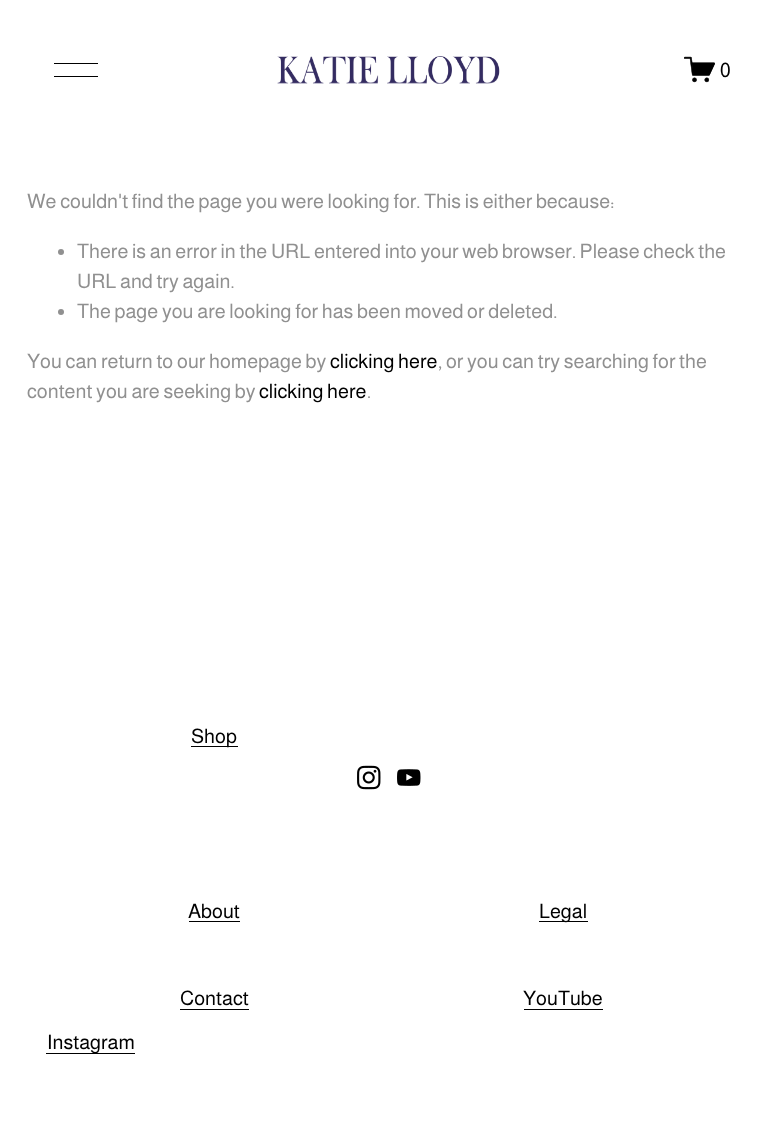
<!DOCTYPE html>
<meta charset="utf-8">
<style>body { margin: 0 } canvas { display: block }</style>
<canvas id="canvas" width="777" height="1145"></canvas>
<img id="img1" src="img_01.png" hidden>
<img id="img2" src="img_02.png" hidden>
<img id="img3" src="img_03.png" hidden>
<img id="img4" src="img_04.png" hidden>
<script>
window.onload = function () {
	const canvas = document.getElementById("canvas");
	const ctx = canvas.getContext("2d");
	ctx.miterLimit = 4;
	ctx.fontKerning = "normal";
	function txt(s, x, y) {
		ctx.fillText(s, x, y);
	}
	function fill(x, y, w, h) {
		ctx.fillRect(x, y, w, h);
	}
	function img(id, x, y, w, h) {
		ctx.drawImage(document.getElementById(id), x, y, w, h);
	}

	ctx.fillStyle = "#FFFFFF";
	fill(0, 0, 777, 1145);
	ctx.fillStyle = "#000000";
	fill(54, 63, 44, 1);
	fill(54, 76, 44, 1);
	img("img1", 277, 56, 223, 28);
	img("img2", 684, 56, 31, 27);
	ctx.fillStyle = "#909090";
	ctx.beginPath();
	ctx.arc(61, 252, 3, 0, Math.PI * 2);
	ctx.fill();
	ctx.beginPath();
	ctx.arc(61, 312, 3, 0, Math.PI * 2);
	ctx.fill();
	ctx.fillStyle = "#000000";
	fill(191, 746, 47, 1);
	img("img3", 357, 765, 24, 25);
	img("img4", 397, 769, 24, 17);
	fill(189, 921, 51, 1);
	fill(539, 921, 49, 1);
	fill(180, 1009, 69, 1);
	fill(524, 1009, 79, 1);
	fill(46, 1053, 89, 1);
	ctx.font = "20px Almarai";
	txt("0", 720, 77);
	ctx.fillStyle = "#909090";
	txt("We couldn't find the page you were looking for. This is either because:", 27, 208);
	txt("There is an error in the URL entered into your web browser. Please check the", 77, 258);
	txt("URL and try again.", 77, 288);
	txt("The page you are looking for has been moved or deleted.", 77, 318);
	txt("You can return to our homepage by", 27, 368);
	ctx.fillStyle = "#000000";
	txt("clicking here", 330, 368);
	ctx.fillStyle = "#909090";
	txt(", or you can try searching for the", 438, 368);
	txt("content you are seeking by", 27, 398);
	ctx.fillStyle = "#000000";
	txt("clicking here", 259, 398);
	ctx.fillStyle = "#909090";
	txt(".", 367, 398);
	ctx.fillStyle = "#000000";
	txt("Shop", 191, 743);
	txt("About", 188, 918);
	txt("Legal", 539, 918);
	txt("Contact", 180, 1005);
	txt("YouTube", 523, 1005);
	txt("Instagram", 47, 1049);
};
</script>
